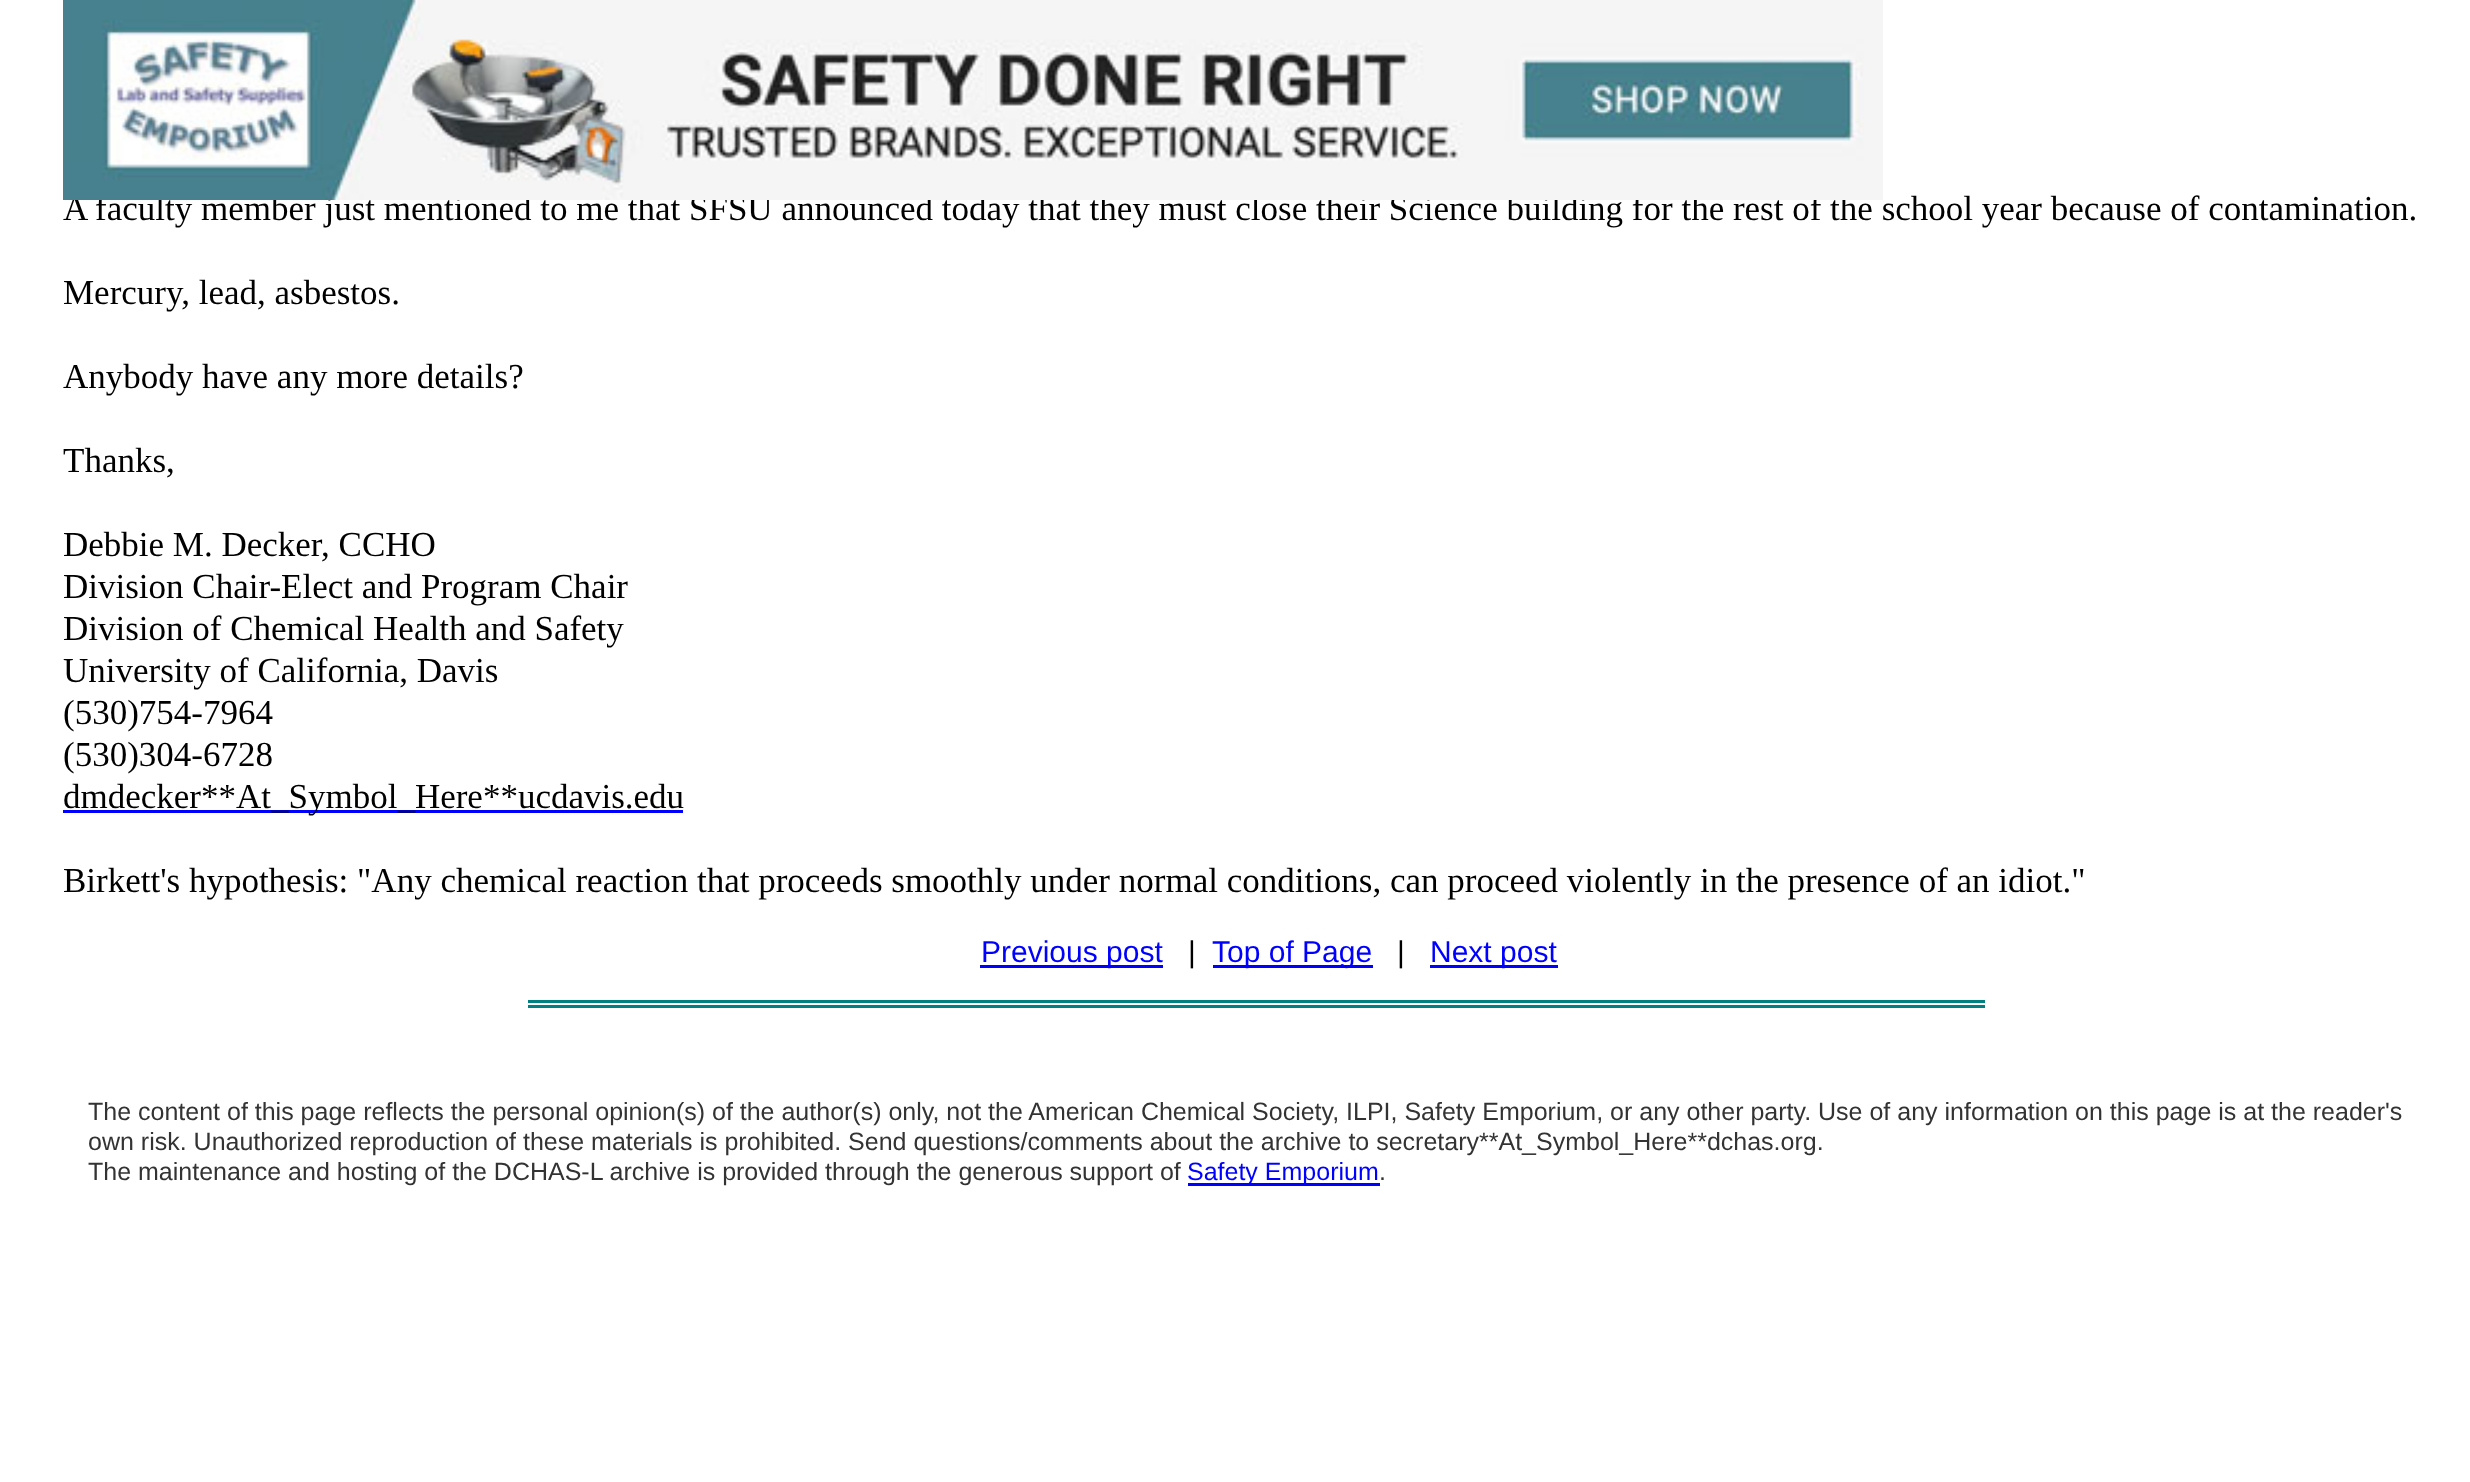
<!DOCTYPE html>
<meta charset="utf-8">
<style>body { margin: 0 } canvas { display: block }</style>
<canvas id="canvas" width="2470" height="1482"></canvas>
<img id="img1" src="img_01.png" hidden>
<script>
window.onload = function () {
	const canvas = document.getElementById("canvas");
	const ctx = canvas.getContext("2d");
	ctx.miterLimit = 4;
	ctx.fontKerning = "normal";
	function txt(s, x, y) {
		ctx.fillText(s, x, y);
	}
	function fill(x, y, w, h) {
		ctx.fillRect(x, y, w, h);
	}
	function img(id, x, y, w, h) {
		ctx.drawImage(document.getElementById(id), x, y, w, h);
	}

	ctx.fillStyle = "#FFFFFF";
	fill(0, 0, 2470, 1482);
	ctx.fillStyle = "#0000FF";
	fill(63, 810, 620, 3);
	fill(980, 965, 183, 3);
	fill(1213, 965, 160, 3);
	fill(1430, 965, 128, 3);
	ctx.fillStyle = "#008080";
	fill(528, 1000, 1457, 3);
	fill(528, 1005, 1457, 3);
	ctx.fillStyle = "#0000FF";
	fill(1188, 1183, 192, 3);
	ctx.font = "35px Liberation Serif";
	ctx.fillStyle = "#000000";
	txt("A faculty member just mentioned to me that SFSU announced today that they must close their Science building for the rest of the school year because of contamination.", 63, 220);
	img("img1", 63, 0, 1820, 200);
	txt("Mercury, lead, asbestos.", 63, 304);
	txt("Anybody have any more details?", 63, 388);
	txt("Thanks,", 63, 472);
	txt("Debbie M. Decker, CCHO", 63, 556);
	txt("Division Chair-Elect and Program Chair", 63, 598);
	txt("Division of Chemical Health and Safety", 63, 640);
	txt("University of California, Davis", 63, 682);
	txt("(530)754-7964", 63, 724);
	txt("(530)304-6728", 63, 766);
	txt("dmdecker**At_Symbol_Here**ucdavis.edu", 63, 808);
	txt("Birkett's hypothesis: \"Any chemical reaction that proceeds smoothly under normal conditions, can proceed violently in the presence of an idiot.\"", 63, 892);
	ctx.font = "30px Liberation Sans";
	ctx.fillStyle = "#0000FF";
	txt("Previous post", 981, 962);
	ctx.fillStyle = "#000000";
	txt("|", 1188, 962);
	ctx.fillStyle = "#0000FF";
	txt("Top of Page", 1212, 962);
	ctx.fillStyle = "#000000";
	txt("|", 1397, 962);
	ctx.fillStyle = "#0000FF";
	txt("Next post", 1430, 962);
	ctx.font = "25px Liberation Sans";
	ctx.fillStyle = "#333333";
	txt("The content of this page reflects the personal opinion(s) of the author(s) only, not the American Chemical Society, ILPI, Safety Emporium, or any other party. Use of any information on this page is at the reader's", 88, 1120);
	txt("own risk. Unauthorized reproduction of these materials is prohibited. Send questions/comments about the archive to secretary**At_Symbol_Here**dchas.org.", 88, 1150);
	txt("The maintenance and hosting of the DCHAS-L archive is provided through the generous support of", 88, 1180);
	ctx.fillStyle = "#0000FF";
	txt("Safety Emporium", 1187, 1180);
	ctx.fillStyle = "#333333";
	txt(".", 1379, 1180);
};
</script>
